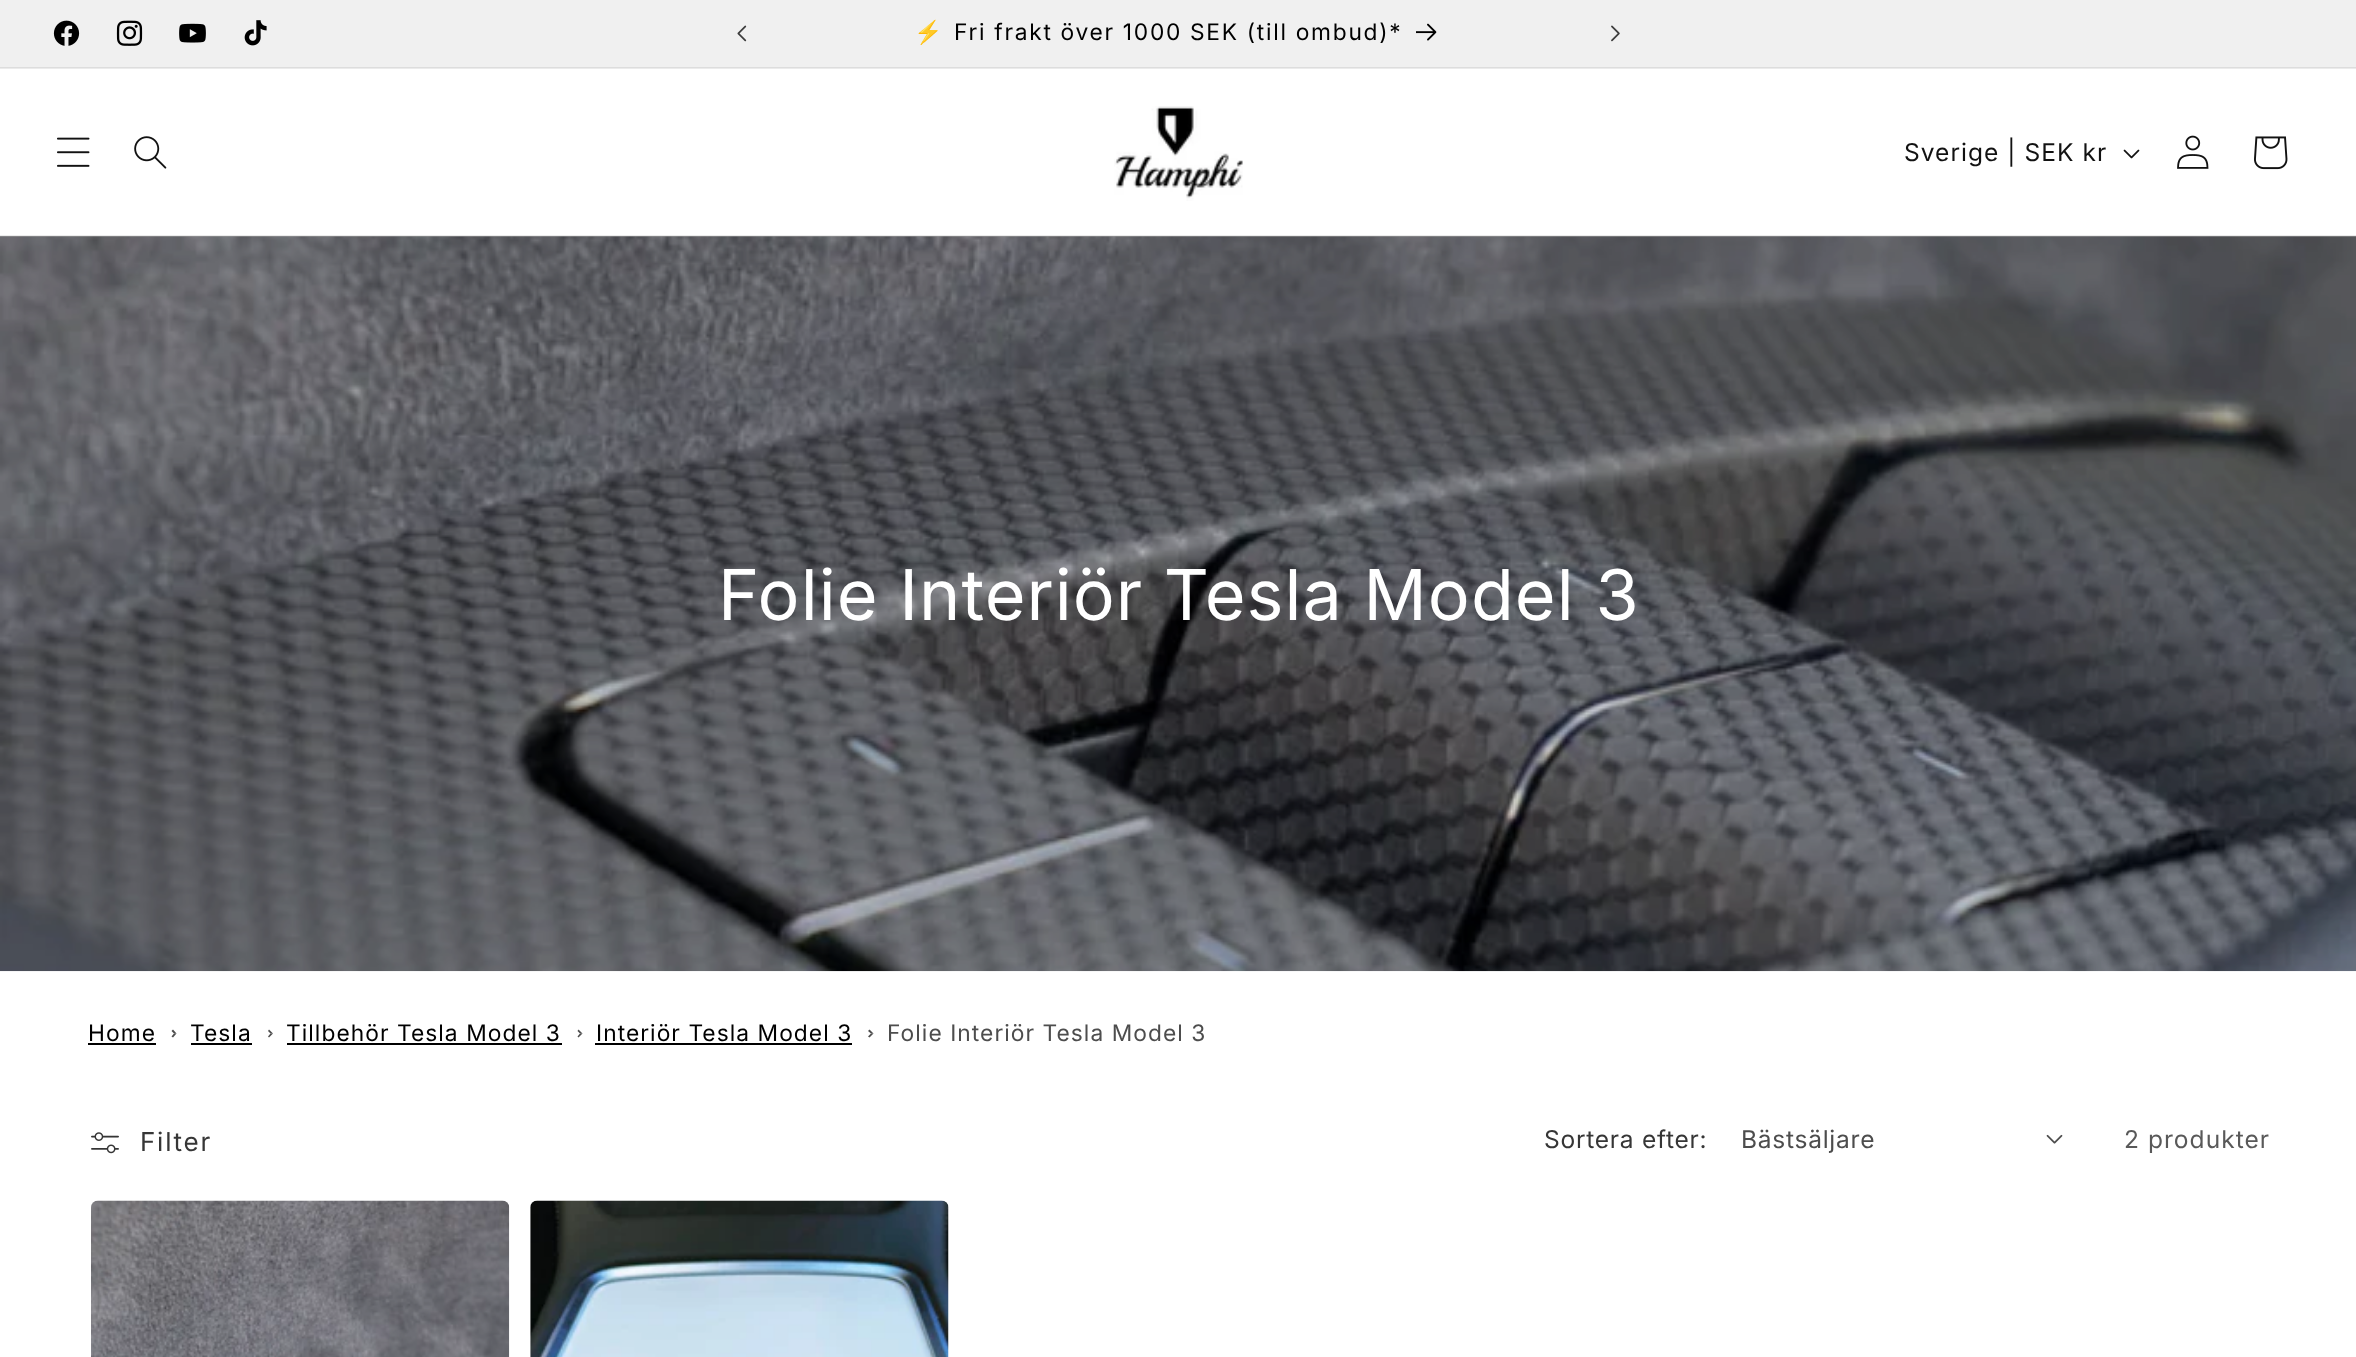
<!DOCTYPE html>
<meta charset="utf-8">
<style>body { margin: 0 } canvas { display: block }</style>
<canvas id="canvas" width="2356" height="1357"></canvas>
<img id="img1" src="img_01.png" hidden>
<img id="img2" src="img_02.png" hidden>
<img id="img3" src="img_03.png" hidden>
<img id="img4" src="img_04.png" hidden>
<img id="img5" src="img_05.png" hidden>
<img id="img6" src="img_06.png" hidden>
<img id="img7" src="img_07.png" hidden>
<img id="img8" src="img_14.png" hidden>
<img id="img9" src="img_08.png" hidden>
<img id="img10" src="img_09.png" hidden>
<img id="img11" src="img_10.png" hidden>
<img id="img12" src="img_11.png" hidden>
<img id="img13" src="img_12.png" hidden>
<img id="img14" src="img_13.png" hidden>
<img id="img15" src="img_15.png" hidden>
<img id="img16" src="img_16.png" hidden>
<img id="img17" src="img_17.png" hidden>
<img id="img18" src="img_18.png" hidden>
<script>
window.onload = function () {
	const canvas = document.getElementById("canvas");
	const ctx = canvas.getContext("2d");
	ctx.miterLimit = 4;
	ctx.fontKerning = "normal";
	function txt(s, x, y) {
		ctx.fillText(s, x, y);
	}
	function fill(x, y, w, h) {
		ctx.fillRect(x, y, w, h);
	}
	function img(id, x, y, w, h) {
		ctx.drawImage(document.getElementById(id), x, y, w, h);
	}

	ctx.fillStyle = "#FFFFFF";
	fill(0, 0, 2356, 1357);
	ctx.fillStyle = "#EBEBEB";
	fill(0, 68, 2356, 1);
	ctx.fillStyle = "#F0F0F0";
	fill(0, 0, 2356, 67);
	ctx.fillStyle = "#DDDDDD";
	fill(0, 67, 2356, 1);
	img("img1", 53, 20, 27, 26);
	img("img2", 116, 20, 27, 26);
	img("img3", 179, 23, 27, 20);
	img("img4", 244, 20, 23, 26);
	img("img5", 737, 25, 10, 17);
	img("img6", 1416, 23, 21, 18);
	img("img7", 1611, 25, 9, 17);
	ctx.fillStyle = "#BABABA";
	fill(0, 236, 2356, 1);
	img("img8", 0, 236, 2356, 736);
	ctx.fillStyle = "rgba(18, 18, 18, 0.08)";
	fill(0, 235, 2356, 2);
	img("img9", 57, 137, 33, 30);
	img("img10", 134, 136, 33, 33);
	img("img11", 1114, 106, 129, 95);
	img("img12", 2123, 149, 17, 10);
	img("img13", 2177, 135, 32, 34);
	img("img14", 2254, 136, 34, 34);
	ctx.fillStyle = "#000000";
	fill(88, 1043, 68, 2);
	ctx.fillStyle = "#4D4D4D";
	ctx.beginPath();
	ctx.moveTo(173, 1029.5);
	ctx.lineTo(176.5, 1033.5);
	ctx.lineTo(174, 1033.5);
	ctx.lineTo(171.5, 1031);
	ctx.closePath();
	ctx.fill();
	ctx.beginPath();
	ctx.moveTo(176.5, 1033.5);
	ctx.lineTo(173, 1037.5);
	ctx.lineTo(171.5, 1036.5);
	ctx.lineTo(174, 1033.5);
	ctx.closePath();
	ctx.fill();
	ctx.fillStyle = "#000000";
	fill(191, 1043, 61, 2);
	ctx.fillStyle = "#4D4D4D";
	ctx.beginPath();
	ctx.moveTo(269, 1029.5);
	ctx.lineTo(273, 1033.5);
	ctx.lineTo(270.5, 1033.5);
	ctx.lineTo(268, 1031);
	ctx.closePath();
	ctx.fill();
	ctx.beginPath();
	ctx.moveTo(273, 1033.5);
	ctx.lineTo(269, 1037.5);
	ctx.lineTo(268, 1036.5);
	ctx.lineTo(270.5, 1033.5);
	ctx.closePath();
	ctx.fill();
	ctx.fillStyle = "#000000";
	fill(287, 1043, 275, 2);
	ctx.fillStyle = "#4D4D4D";
	ctx.beginPath();
	ctx.moveTo(578.5, 1029.5);
	ctx.lineTo(582.5, 1033.5);
	ctx.lineTo(580, 1033.5);
	ctx.lineTo(577.5, 1031);
	ctx.closePath();
	ctx.fill();
	ctx.beginPath();
	ctx.moveTo(582.5, 1033.5);
	ctx.lineTo(578.5, 1037.5);
	ctx.lineTo(577.5, 1036.5);
	ctx.lineTo(580, 1033.5);
	ctx.closePath();
	ctx.fill();
	ctx.fillStyle = "#000000";
	fill(595, 1043, 257, 2);
	ctx.fillStyle = "#4D4D4D";
	ctx.beginPath();
	ctx.moveTo(869.5, 1029.5);
	ctx.lineTo(873.5, 1033.5);
	ctx.lineTo(871, 1033.5);
	ctx.lineTo(868, 1031);
	ctx.closePath();
	ctx.fill();
	ctx.beginPath();
	ctx.moveTo(873.5, 1033.5);
	ctx.lineTo(869.5, 1037.5);
	ctx.lineTo(868, 1036.5);
	ctx.lineTo(871, 1033.5);
	ctx.closePath();
	ctx.fill();
	img("img15", 91, 1132, 28, 22);
	img("img16", 2046, 1134, 17, 10);
	img("img17", 91, 1200, 419, 157);
	img("img18", 530, 1200, 419, 157);
	ctx.letterSpacing = "1.75px";
	ctx.font = "22.75px Noto Color Emoji";
	ctx.fillStyle = "#000000";
	txt("⚡️", 914, 40);
	ctx.wordSpacing = "-0.25px";
	ctx.font = "22.75px Inter";
	txt("Fri frakt över 1000 SEK (till ombud)*", 954, 40);
	ctx.letterSpacing = "1.05px";
	ctx.wordSpacing = "0px";
	ctx.font = "24.5px Inter";
	ctx.fillStyle = "#121212";
	txt("Sverige | SEK kr", 1904, 161);
	ctx.font = "70px Inter";
	ctx.fillStyle = "#FFFFFF";
	txt("Folie Interiör Tesla Model 3", 718, 620);
	ctx.font = "22.75px Inter";
	ctx.fillStyle = "#000000";
	txt("Home", 88, 1041);
	txt("Tesla", 190, 1041);
	txt("Tillbehör Tesla Model 3", 286, 1041);
	txt("Interiör Tesla Model 3", 596, 1041);
	ctx.fillStyle = "#4D4D4D";
	txt("Folie Interiör Tesla Model 3", 887, 1041);
	ctx.letterSpacing = "1.75px";
	ctx.font = "26px Inter";
	ctx.fillStyle = "#363636";
	txt("Filter", 140, 1151);
	ctx.letterSpacing = "0.75px";
	ctx.font = "24.5px Inter";
	txt("Sortera efter:", 1544, 1148);
	ctx.fillStyle = "#4D4D4D";
	txt("Bästsäljare", 1741, 1148);
	ctx.letterSpacing = "1.05px";
	ctx.fillStyle = "#595959";
	txt("2 produkter", 2124, 1148);
};
</script>
